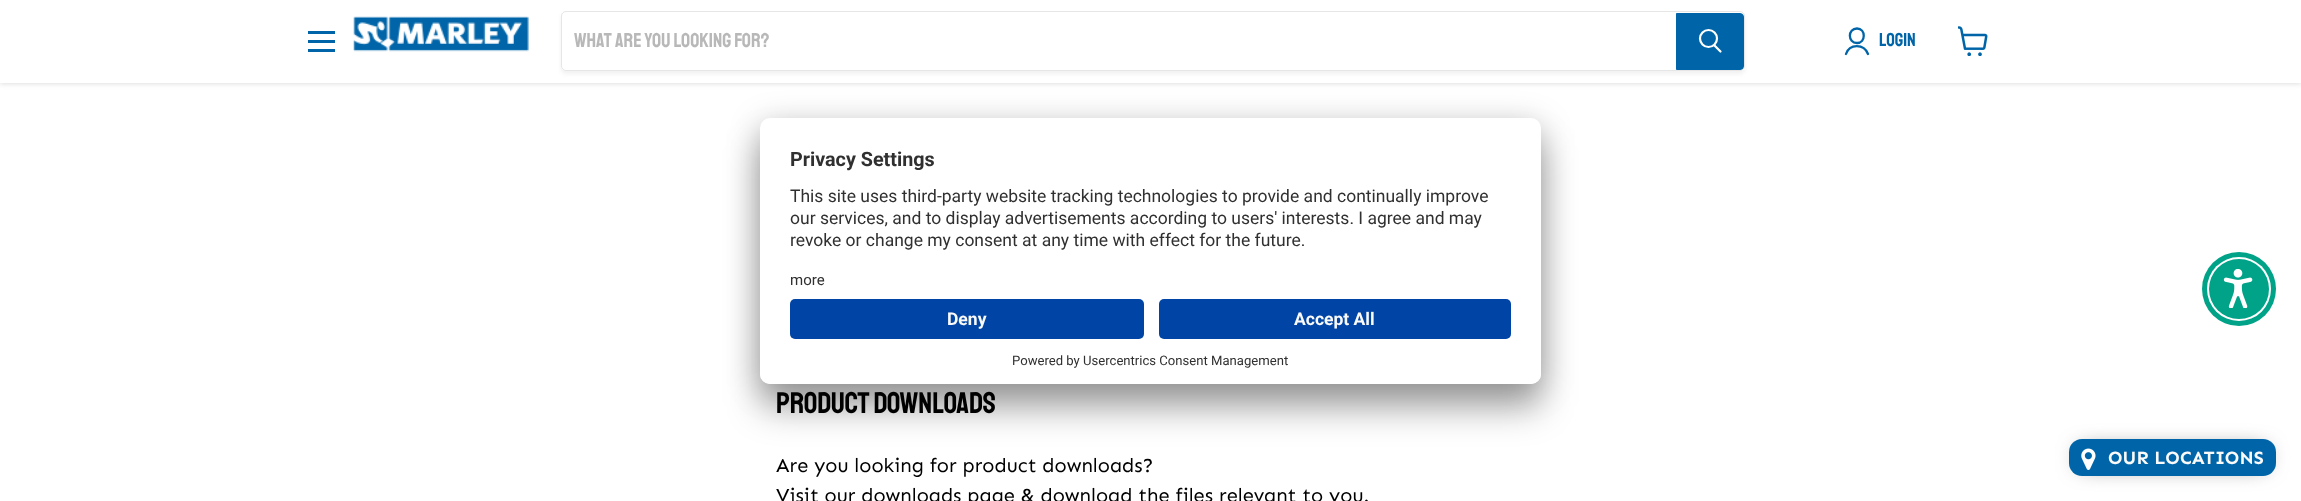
<!DOCTYPE html>
<meta charset="utf-8">
<style>body { margin: 0 } canvas { display: block }</style>
<canvas id="canvas" width="2301" height="501"></canvas>
<img id="img1" src="img_01.png" hidden>
<img id="img2" src="img_02.png" hidden>
<img id="img3" src="img_03.png" hidden>
<img id="img4" src="img_04.png" hidden>
<script>
window.onload = function () {
	const canvas = document.getElementById("canvas");
	const ctx = canvas.getContext("2d");
	ctx.miterLimit = 4;
	ctx.fontKerning = "normal";
	function txt(s, x, y) {
		ctx.fillText(s, x, y);
	}
	function fill(x, y, w, h) {
		ctx.fillRect(x, y, w, h);
	}
	function round(x, y, w, h, r) {
		ctx.beginPath();
		ctx.roundRect(x, y, w, h, r);
		ctx.fill();
	}
	function img(id, x, y, w, h) {
		ctx.drawImage(document.getElementById(id), x, y, w, h);
	}

	ctx.fillStyle = "#FFFFFF";
	fill(0, 0, 2301, 501);
	ctx.fillStyle = "rgba(128, 128, 128, 0.25)";
	ctx.filter = "blur(2.5px)";
	ctx.beginPath();
	ctx.rect(0, 1, 2301, 83);
	ctx.fill();
	ctx.filter = "none";
	ctx.fillStyle = "#FFFFFF";
	fill(0, 0, 2301, 83);
	ctx.fillStyle = "#0065A8";
	fill(308, 31, 27, 3);
	fill(308, 40, 27, 3);
	fill(308, 49, 27, 3);
	img("img1", 353, 16, 176, 36);
	ctx.save();
	ctx.beginPath();
	ctx.moveTo(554, 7);
	ctx.lineTo(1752, 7);
	ctx.lineTo(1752, 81);
	ctx.lineTo(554, 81);
	ctx.closePath();
	ctx.moveTo(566, 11);
	ctx.lineTo(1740, 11);
	ctx.bezierCurveTo(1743, 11, 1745, 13, 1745, 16);
	ctx.lineTo(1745, 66);
	ctx.bezierCurveTo(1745, 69, 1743, 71, 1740, 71);
	ctx.lineTo(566, 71);
	ctx.bezierCurveTo(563, 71, 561, 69, 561, 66);
	ctx.lineTo(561, 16);
	ctx.bezierCurveTo(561, 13, 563, 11, 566, 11);
	ctx.closePath();
	ctx.clip("evenodd");
	ctx.fillStyle = "rgba(128, 128, 128, 0.11)";
	ctx.filter = "blur(2px)";
	ctx.beginPath();
	ctx.roundRect(561, 14, 1184, 60, 5);
	ctx.fill();
	ctx.filter = "none";
	ctx.restore();
	ctx.beginPath();
	ctx.roundRect(561.5, 11.5, 1183, 59, 4.5);
	ctx.strokeStyle = "rgba(128, 128, 128, 0.2)";
	ctx.stroke();
	ctx.beginPath();
	ctx.roundRect(1676.5, 13.5, 67, 56, [0, 3.5, 3.5, 0]);
	ctx.fill();
	ctx.strokeStyle = "#0065A8";
	ctx.stroke();
	ctx.beginPath();
	ctx.moveTo(1720.5, 51.5);
	ctx.lineTo(1714.5, 45.5);
	ctx.strokeStyle = "#FFFFFF";
	ctx.lineWidth = 2.2;
	ctx.lineCap = "round";
	ctx.stroke();
	ctx.beginPath();
	ctx.arc(1708.5, 38.5, 8.5, 0, Math.PI * 2);
	ctx.stroke();
	ctx.beginPath();
	ctx.moveTo(1857, 43);
	ctx.bezierCurveTo(1866, 43, 1866, 28.5, 1857, 28.5);
	ctx.bezierCurveTo(1847.5, 28.5, 1847.5, 43, 1857, 43);
	ctx.closePath();
	ctx.moveTo(1868, 54);
	ctx.bezierCurveTo(1864, 43.5, 1849.5, 43.5, 1846, 54);
	ctx.strokeStyle = "#0065A8";
	ctx.lineWidth = 2.3;
	ctx.lineJoin = "round";
	ctx.stroke();
	img("img2", 1958, 26, 30, 30);
	ctx.fillStyle = "rgba(0, 0, 0, 0.3)";
	ctx.filter = "blur(17.5px)";
	ctx.beginPath();
	ctx.roundRect(760, 143, 781, 266, 10);
	ctx.fill();
	ctx.filter = "none";
	ctx.fillStyle = "rgba(0, 0, 0, 0.22)";
	ctx.filter = "blur(16px)";
	ctx.beginPath();
	ctx.roundRect(760, 124, 781, 266, 10);
	ctx.fill();
	ctx.filter = "none";
	ctx.fillStyle = "#FFFFFF";
	round(760, 118, 781, 266, 10);
	ctx.beginPath();
	ctx.roundRect(760, 289, 781, 95, [0, 0, 10, 10]);
	ctx.fill();
	ctx.fillStyle = "#0045A5";
	round(790, 299, 354, 40, 5);
	round(1159, 299, 352, 40, 5);
	ctx.fillStyle = "#00A388";
	ctx.beginPath();
	ctx.arc(2239, 289, 37, 0, Math.PI * 2);
	ctx.fill();
	ctx.fillStyle = "#FFFFFF";
	ctx.beginPath();
	ctx.arc(2239, 289, 32, 0, Math.PI * 2);
	ctx.fill();
	ctx.fillStyle = "#00A388";
	ctx.beginPath();
	ctx.arc(2239, 289, 30, 0, Math.PI * 2);
	ctx.fill();
	img("img3", 2223, 269, 30, 39);
	ctx.fillStyle = "#5A5A5A";
	ctx.filter = "blur(11px)";
	ctx.beginPath();
	ctx.roundRect(2080, 450, 185, 15, 1);
	ctx.fill();
	ctx.filter = "none";
	ctx.fillStyle = "#0065A8";
	round(2069, 439, 207, 37, 13);
	img("img4", 2081, 448, 15, 22);
	ctx.font = "20px Staatliches";
	ctx.fillStyle = "#B8B8B8";
	txt("What are you looking for?", 574, 47);
	ctx.font = "18.75px Staatliches";
	ctx.fillStyle = "#0065A8";
	txt("Login", 1879, 46);
	ctx.font = "bold 19.75px Roboto";
	ctx.fillStyle = "#303030";
	txt("Privacy Settings", 790, 166);
	ctx.font = "17.5px Roboto";
	txt("This site uses third-party website tracking technologies to provide and continually improve", 790, 202);
	txt("our services, and to display advertisements according to users' interests. I agree and may", 790, 224);
	txt("revoke or change my consent at any time with effect for the future.", 790, 246);
	ctx.font = "15px Roboto";
	txt("more", 790, 285);
	ctx.font = "bold 17.5px Roboto";
	ctx.fillStyle = "#FAFAFA";
	txt("Deny", 947, 325);
	txt("Accept All", 1294, 325);
	ctx.font = "13.1px Roboto";
	ctx.fillStyle = "#303030";
	txt("Powered by Usercentrics Consent Management", 1012, 365);
	ctx.letterSpacing = "-0.25px";
	ctx.font = "30px Staatliches";
	ctx.fillStyle = "#000000";
	txt("product downloads", 776, 413);
	ctx.letterSpacing = "0px";
	ctx.font = "20px Sen";
	txt("Are you looking for product downloads?", 776, 472);
	txt("Visit our downloads page & download the files relevant to you.", 776, 502);
	ctx.letterSpacing = "0.1px";
	ctx.font = "bold 18.75px Sen";
	ctx.fillStyle = "#FAFAFA";
	txt("OUR LOCATIONS", 2108, 464);
};
</script>
